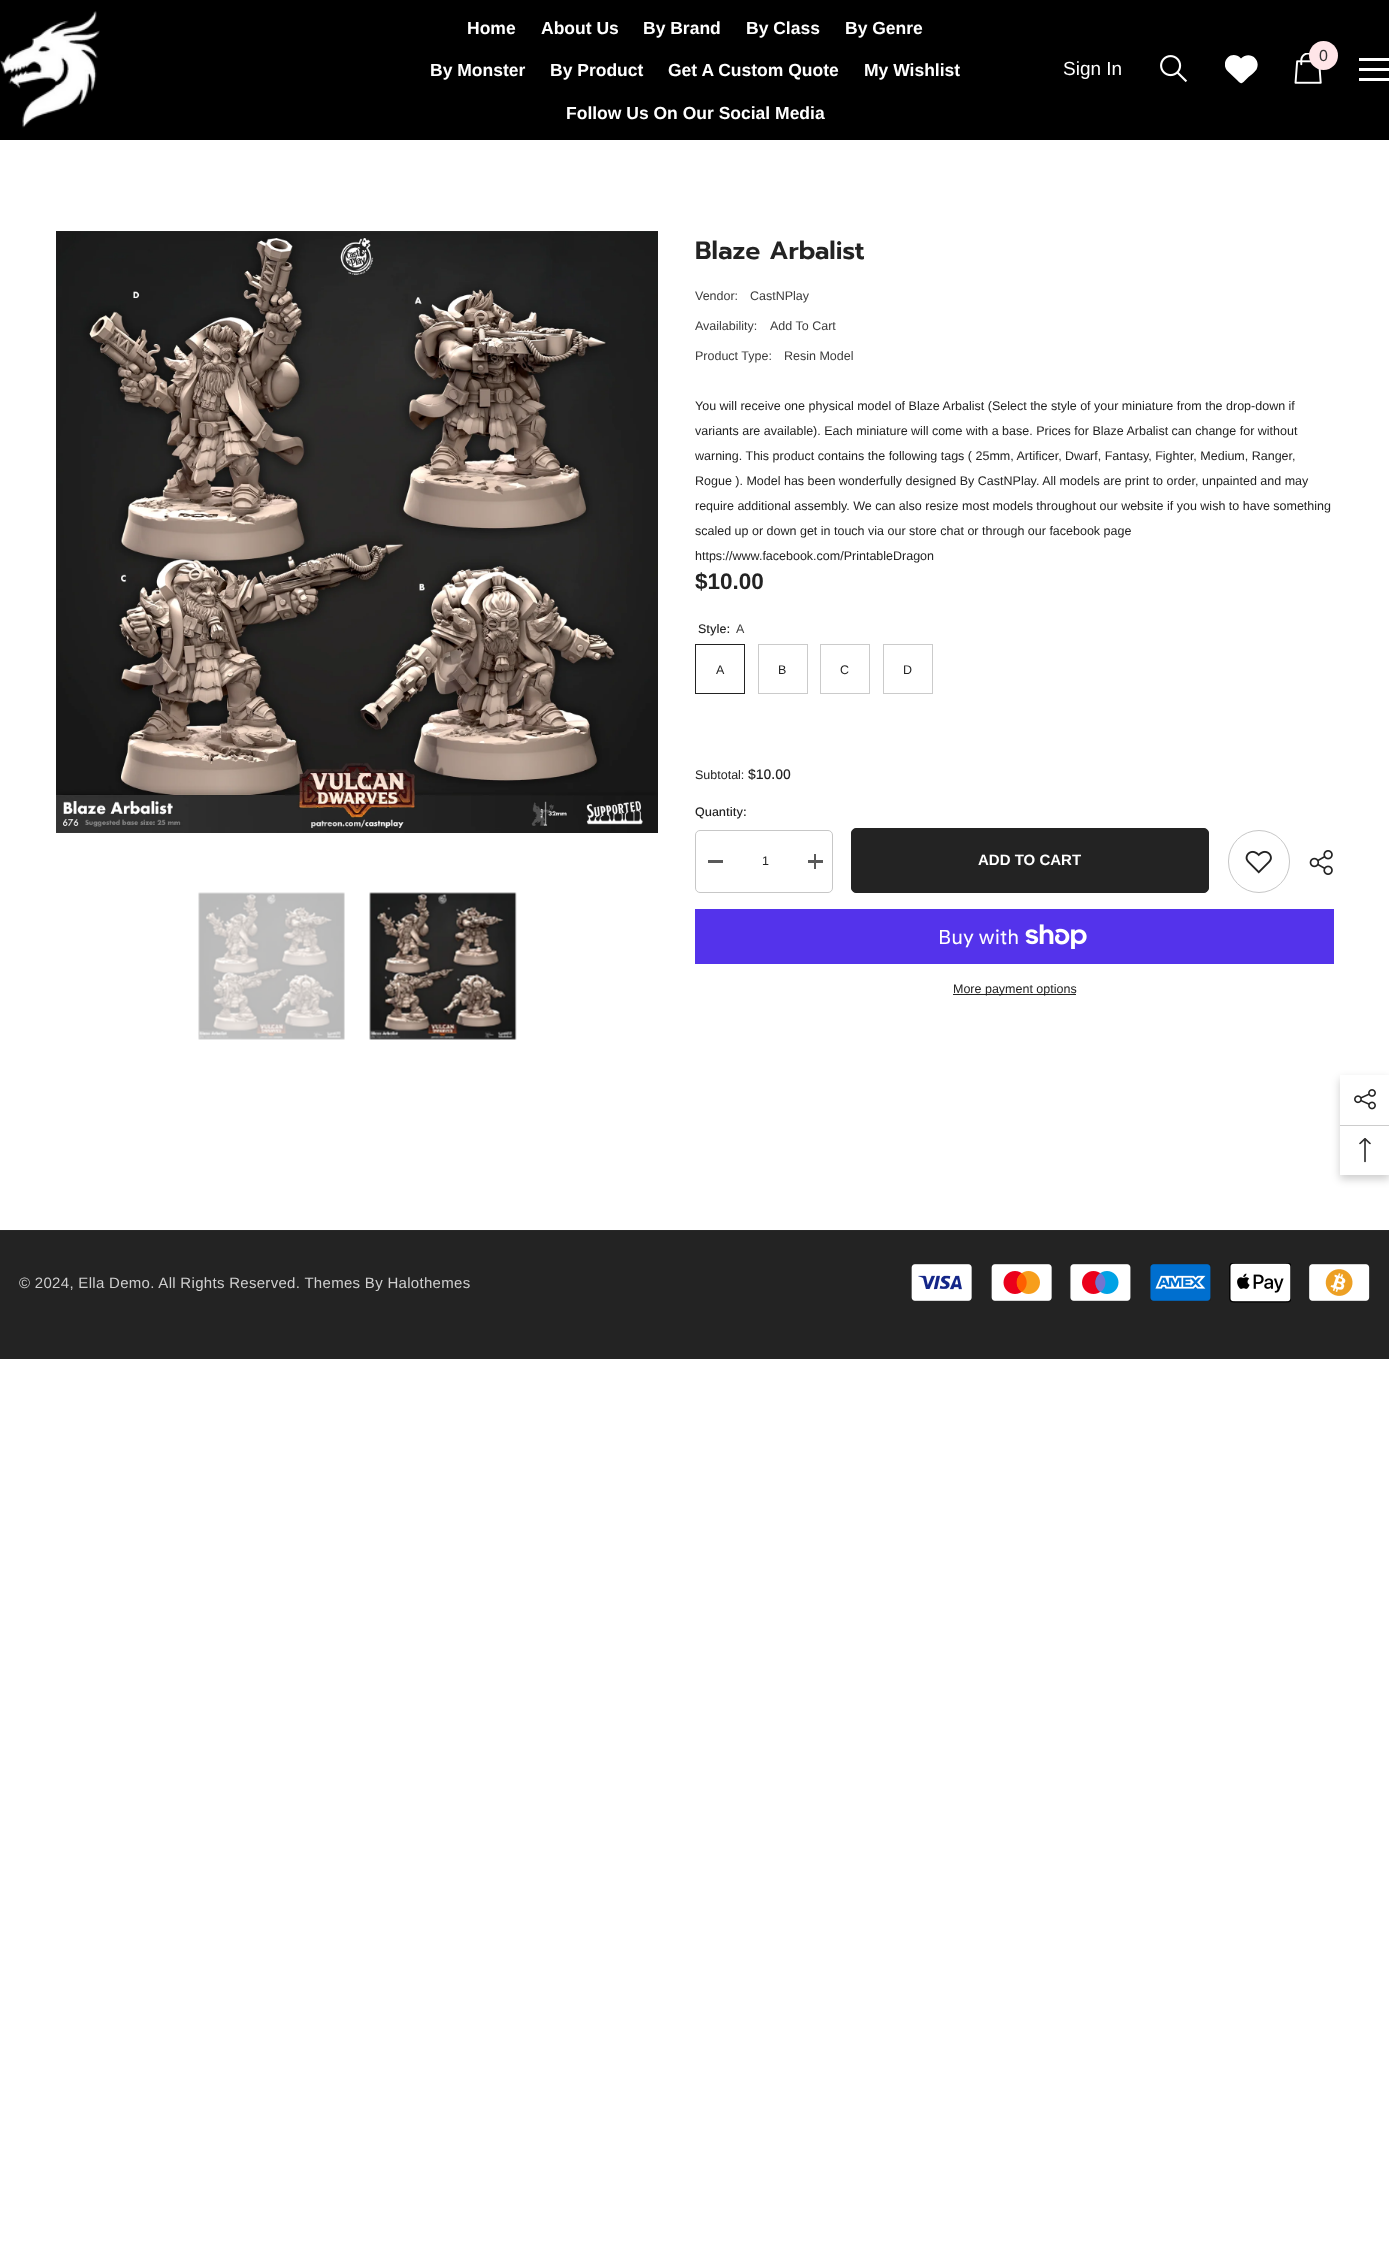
<!DOCTYPE html>
<meta charset="utf-8">
<style>body { margin: 0 } canvas { display: block }</style>
<canvas id="canvas" width="1389" height="2248"></canvas>
<img id="img1" src="img_01.png" hidden>
<img id="img2" src="img_02.png" hidden>
<img id="img3" src="img_03.png" hidden>
<img id="img4" src="img_04.png" hidden>
<img id="img5" src="img_05.png" hidden>
<img id="img6" src="img_06.png" hidden>
<img id="img7" src="img_07.png" hidden>
<img id="img8" src="img_08.png" hidden>
<img id="img9" src="img_09.png" hidden>
<img id="img10" src="img_10.png" hidden>
<img id="img11" src="img_11.png" hidden>
<img id="img12" src="img_12.png" hidden>
<img id="img13" src="img_13.png" hidden>
<img id="img14" src="img_14.png" hidden>
<img id="img15" src="img_15.png" hidden>
<img id="img16" src="img_16.png" hidden>
<img id="img17" src="img_17.png" hidden>
<script>
window.onload = function () {
	const canvas = document.getElementById("canvas");
	const ctx = canvas.getContext("2d");
	ctx.miterLimit = 4;
	ctx.fontKerning = "normal";
	function txt(s, x, y) {
		ctx.fillText(s, x, y);
	}
	function fill(x, y, w, h) {
		ctx.fillRect(x, y, w, h);
	}
	function img(id, x, y, w, h) {
		ctx.drawImage(document.getElementById(id), x, y, w, h);
	}

	ctx.fillStyle = "#FFFFFF";
	fill(0, 0, 1389, 2248);
	ctx.fillStyle = "#000000";
	fill(0, 0, 1389, 140);
	img("img1", 0, 11, 100, 117);
	img("img2", 1160, 55, 28, 28);
	ctx.save();
	ctx.beginPath();
	ctx.rect(1225, 53, 33, 32);
	ctx.clip();
	ctx.fillStyle = "#FFFFFF";
	ctx.beginPath();
	ctx.moveTo(1228, 71.5);
	ctx.lineTo(1237.5, 80.5);
	ctx.bezierCurveTo(1241, 84, 1241.5, 84, 1245, 80.5);
	ctx.lineTo(1248.5, 77);
	ctx.bezierCurveTo(1251.5, 74.5, 1254.5, 72.5, 1256.5, 69.5);
	ctx.bezierCurveTo(1261.5, 59.5, 1249.5, 50, 1241, 58.5);
	ctx.bezierCurveTo(1231, 48.5, 1219, 63, 1228, 71.5);
	ctx.closePath();
	ctx.fill();
	ctx.restore();
	img("img3", 1294, 53, 28, 31);
	ctx.fillStyle = "#FFE5E8";
	ctx.beginPath();
	ctx.arc(1323.5, 55.5, 14.5, 0, Math.PI * 2);
	ctx.fill();
	ctx.fillStyle = "#FFFFFF";
	fill(1359, 68, 30, 3);
	fill(1359, 58, 30, 3);
	fill(1359, 78, 30, 3);
	img("img4", 56, 231, 602, 602);
	img("img5", 198, 892, 147, 148);
	img("img6", 369, 892, 148, 148);
	ctx.strokeStyle = "#232323";
	ctx.strokeRect(695.5, 644.5, 49, 49);
	ctx.strokeStyle = "#CBCBCB";
	ctx.strokeRect(758.5, 644.5, 49, 49);
	ctx.strokeRect(820.5, 644.5, 49, 49);
	ctx.strokeRect(883.5, 644.5, 49, 49);
	ctx.beginPath();
	ctx.roundRect(695.5, 830.5, 137, 62, 4.5);
	ctx.strokeStyle = "#C7C7C7";
	ctx.stroke();
	ctx.fillStyle = "#5A5A5A";
	fill(708, 860, 15, 3);
	fill(808, 860, 15, 3);
	fill(814, 854, 2, 15);
	ctx.fillStyle = "#232323";
	ctx.beginPath();
	ctx.roundRect(851.5, 828.5, 357, 64, 4.5);
	ctx.fill();
	ctx.strokeStyle = "#232323";
	ctx.stroke();
	ctx.beginPath();
	ctx.roundRect(1228.5, 830.5, 61, 62, 30.5);
	ctx.strokeStyle = "#C7C7C7";
	ctx.stroke();
	img("img7", 1245, 850, 27, 24);
	img("img8", 1309, 850, 24, 25);
	ctx.fillStyle = "#5433EB";
	fill(695, 909, 639, 55);
	img("img9", 1025, 924, 62, 25);
	ctx.fillStyle = "#232323";
	fill(953, 994, 123, 1);
	fill(0, 1231, 1389, 128);
	ctx.fillStyle = "#282828";
	fill(0, 1230, 1389, 1);
	img("img10", 911, 1264, 61, 37);
	img("img11", 991, 1264, 61, 37);
	img("img12", 1070, 1264, 61, 37);
	img("img13", 1150, 1264, 61, 37);
	img("img14", 1229, 1263, 62, 40);
	img("img15", 1309, 1264, 61, 37);
	ctx.save();
	ctx.beginPath();
	ctx.moveTo(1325, 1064);
	ctx.lineTo(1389, 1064);
	ctx.lineTo(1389, 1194);
	ctx.lineTo(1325, 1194);
	ctx.closePath();
	ctx.moveTo(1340, 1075);
	ctx.lineTo(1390, 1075);
	ctx.lineTo(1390, 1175);
	ctx.lineTo(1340, 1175);
	ctx.closePath();
	ctx.clip("evenodd");
	ctx.fillStyle = "rgba(0, 0, 0, 0.2)";
	ctx.filter = "blur(4.5px)";
	ctx.beginPath();
	ctx.rect(1340, 1079, 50, 100);
	ctx.fill();
	ctx.filter = "none";
	ctx.restore();
	img("img16", 1354, 1089, 22, 21);
	ctx.fillStyle = "#CCCCCC";
	fill(1340, 1125, 49, 1);
	img("img17", 1359, 1138, 12, 25);
	ctx.font = "bold 17.5px Arimo";
	ctx.fillStyle = "#FFFFFF";
	txt("Home", 467, 34);
	txt("About Us", 541, 34);
	txt("By Brand", 643, 34);
	txt("By Class", 746, 34);
	txt("By Genre", 845, 34);
	txt("By Monster", 430, 76);
	txt("By Product", 550, 76);
	txt("Get A Custom Quote", 668, 76);
	txt("My Wishlist", 864, 76);
	txt("Follow Us On Our Social Media", 566, 119);
	ctx.font = "19px Arimo";
	txt("Sign In", 1063, 75);
	ctx.font = "16px Arimo";
	ctx.fillStyle = "#323232";
	txt("0", 1319, 61);
	ctx.font = "600 25px Prompt";
	ctx.fillStyle = "#232323";
	txt("Blaze Arbalist", 695, 259);
	ctx.font = "12.5px Arimo";
	ctx.fillStyle = "#3C3C3C";
	txt("Vendor:", 695, 300);
	txt("CastNPlay", 750, 300);
	txt("Availability:", 695, 330);
	txt("Add To Cart", 770, 330);
	txt("Product Type:", 695, 360);
	txt("Resin Model", 784, 360);
	ctx.fillStyle = "#232323";
	txt("You will receive one physical model of Blaze Arbalist (Select the style of your miniature from the drop-down if", 695, 410);
	txt("variants are available). Each miniature will come with a base. Prices for Blaze Arbalist can change for without", 695, 435);
	txt("warning. This product contains the following tags ( 25mm, Artificer, Dwarf, Fantasy, Fighter, Medium, Ranger,", 695, 460);
	txt("Rogue ). Model has been wonderfully designed By CastNPlay. All models are print to order, unpainted and may", 695, 485);
	txt("require additional assembly. We can also resize most models throughout our website if you wish to have something", 695, 510);
	txt("scaled up or down get in touch via our store chat or through our facebook page", 695, 535);
	txt("https://www.facebook.com/PrintableDragon", 695, 560);
	ctx.font = "bold 22.5px Arimo";
	txt("$10.00", 695, 589);
	ctx.font = "500 12.5px Arimo";
	txt("Style:", 698, 633);
	ctx.font = "12.5px Arimo";
	ctx.fillStyle = "#3C3C3C";
	txt("A", 736, 633);
	ctx.fillStyle = "#232323";
	txt("A", 716, 674);
	txt("B", 778, 674);
	txt("C", 840, 674);
	txt("D", 903, 674);
	txt("Subtotal:", 695, 779);
	ctx.font = "500 14px Arimo";
	txt("$10.00", 748, 779);
	ctx.font = "500 12.5px Arimo";
	txt("Quantity:", 695, 816);
	ctx.font = "12.5px Arimo";
	txt("1", 762, 865);
	ctx.font = "bold 15px Arimo";
	ctx.fillStyle = "#FFFFFF";
	txt("ADD TO CART", 978, 865);
	ctx.font = "20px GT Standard";
	txt("Buy with", 938, 944);
	ctx.font = "12.5px Arimo";
	ctx.fillStyle = "#232323";
	txt("More payment options", 953, 993);
	ctx.letterSpacing = "0.3px";
	ctx.font = "15px Arimo";
	ctx.fillStyle = "#CFCFCF";
	txt("© 2024, Ella Demo. All Rights Reserved. Themes By Halothemes", 19, 1288);
};
</script>
